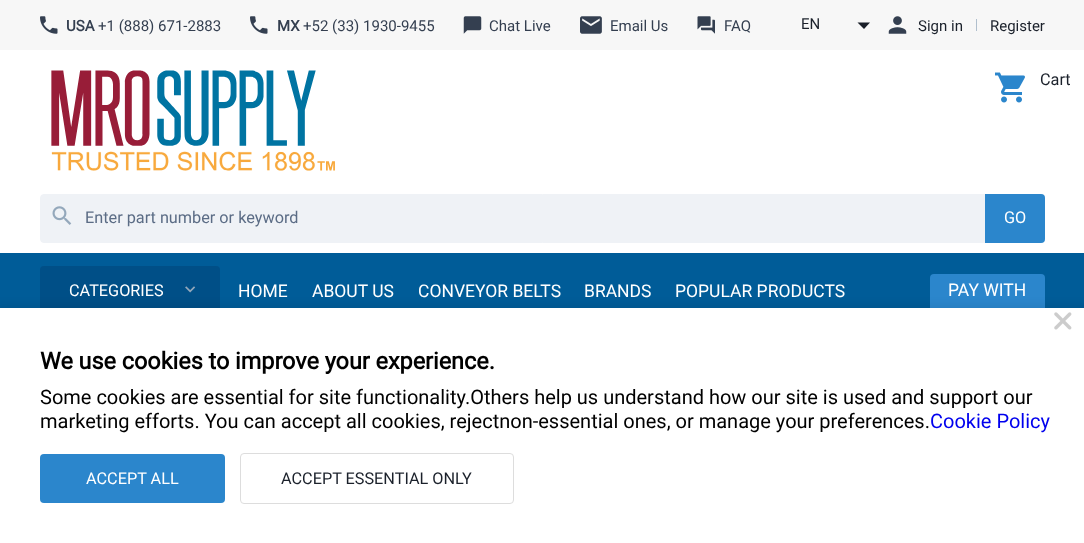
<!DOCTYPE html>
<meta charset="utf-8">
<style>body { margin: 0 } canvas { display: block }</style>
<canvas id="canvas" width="1084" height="543"></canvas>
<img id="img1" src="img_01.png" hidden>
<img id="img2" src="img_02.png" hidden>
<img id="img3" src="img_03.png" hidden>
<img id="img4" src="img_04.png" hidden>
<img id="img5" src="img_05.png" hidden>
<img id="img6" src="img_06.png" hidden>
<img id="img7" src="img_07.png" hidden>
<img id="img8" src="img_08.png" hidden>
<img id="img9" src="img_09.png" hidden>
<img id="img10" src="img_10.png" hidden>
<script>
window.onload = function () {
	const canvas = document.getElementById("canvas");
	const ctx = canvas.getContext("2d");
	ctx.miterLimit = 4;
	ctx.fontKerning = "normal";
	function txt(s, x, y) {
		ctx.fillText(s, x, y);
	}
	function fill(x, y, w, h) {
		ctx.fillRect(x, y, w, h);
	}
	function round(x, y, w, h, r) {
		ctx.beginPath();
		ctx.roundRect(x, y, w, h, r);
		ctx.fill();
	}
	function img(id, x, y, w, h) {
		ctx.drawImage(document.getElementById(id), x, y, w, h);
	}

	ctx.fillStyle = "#FFFFFF";
	fill(0, 0, 1084, 543);
	ctx.fillStyle = "#F7F7F7";
	fill(0, 0, 1084, 50);
	img("img1", 40, 16, 18, 18);
	img("img1", 250, 16, 18, 18);
	img("img2", 463, 16, 19, 18);
	img("img3", 580, 16, 22, 18);
	img("img4", 697, 16, 18, 18);
	ctx.fillStyle = "#191F28";
	ctx.beginPath();
	ctx.moveTo(857.5, 22.5);
	ctx.lineTo(864, 29);
	ctx.lineTo(870, 22.5);
	ctx.closePath();
	ctx.fill();
	img("img5", 888, 16, 19, 18);
	ctx.fillStyle = "#B0BFCD";
	fill(976, 19, 1, 12);
	img("img6", 995, 72, 30, 31);
	img("img7", 51, 70, 284, 101);
	ctx.fillStyle = "#EFF2F6";
	ctx.beginPath();
	ctx.roundRect(40.5, 194.5, 1004, 48, 3.5);
	ctx.fill();
	ctx.strokeStyle = "#EFF2F6";
	ctx.stroke();
	img("img8", 52, 206, 20, 19);
	ctx.fillStyle = "#2B86CC";
	ctx.beginPath();
	ctx.roundRect(985, 194, 60, 49, [0, 4, 4, 0]);
	ctx.fill();
	ctx.fillStyle = "#005C98";
	fill(0, 253, 1084, 55);
	ctx.fillStyle = "#004F87";
	round(40, 266, 180, 49, 4);
	img("img9", 185, 286, 11, 7);
	ctx.fillStyle = "#2B86CC";
	round(930, 274, 115, 55, 4);
	ctx.fillStyle = "rgba(0, 0, 0, 0.1)";
	ctx.filter = "blur(6px)";
	ctx.beginPath();
	ctx.rect(-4, 308, 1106, 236);
	ctx.fill();
	ctx.filter = "none";
	ctx.fillStyle = "#FFFFFF";
	fill(0, 308, 1084, 235);
	img("img10", 1054, 312, 18, 18);
	ctx.fillStyle = "#2B86CC";
	round(40, 454, 185, 49, 4);
	ctx.beginPath();
	ctx.roundRect(240.5, 453.5, 273, 50, 3.5);
	ctx.strokeStyle = "#DDDDDD";
	ctx.stroke();
	ctx.font = "bold 15px Roboto";
	ctx.fillStyle = "#343F50";
	txt("USA", 66, 31);
	ctx.font = "15px Roboto";
	txt("+1 (888) 671-2883", 98, 31);
	ctx.font = "bold 15px Roboto";
	txt("MX", 277, 31);
	ctx.font = "15px Roboto";
	txt("+52 (33) 1930-9455", 303, 31);
	txt("Chat Live", 489, 31);
	txt("Email Us", 610, 31);
	txt("FAQ", 724, 31);
	ctx.fillStyle = "#1B212B";
	txt("EN", 801, 29);
	txt("Sign in", 918, 31);
	txt("Register", 990, 31);
	ctx.font = "16.25px Roboto";
	txt("Cart", 1040, 85);
	ctx.fillStyle = "#5B6C85";
	txt("Enter part number or keyword", 85, 223);
	ctx.fillStyle = "#FFFFFF";
	txt("GO", 1004, 223);
	txt("CATEGORIES", 69, 296);
	ctx.font = "17.5px Roboto";
	txt("HOME", 238, 297);
	txt("ABOUT US", 312, 297);
	txt("CONVEYOR BELTS", 418, 297);
	txt("BRANDS", 584, 297);
	txt("POPULAR PRODUCTS", 675, 297);
	txt("PAY WITH", 948, 296);
	ctx.font = "bold 23.4px Roboto";
	ctx.fillStyle = "#000000";
	txt("We use cookies to improve your experience.", 40, 369);
	ctx.font = "20px Roboto";
	txt("Some cookies are essential for site functionality.Others help us understand how our site is used and support our", 40, 404);
	txt("marketing efforts. You can accept all cookies, rejectnon-essential ones, or manage your preferences.", 40, 428);
	ctx.fillStyle = "#0000EE";
	txt("Cookie Policy", 930, 428);
	ctx.font = "16.25px Roboto";
	ctx.fillStyle = "#FFFFFF";
	txt("ACCEPT ALL", 86, 484);
	ctx.fillStyle = "#1B212B";
	txt("ACCEPT ESSENTIAL ONLY", 281, 484);
};
</script>
